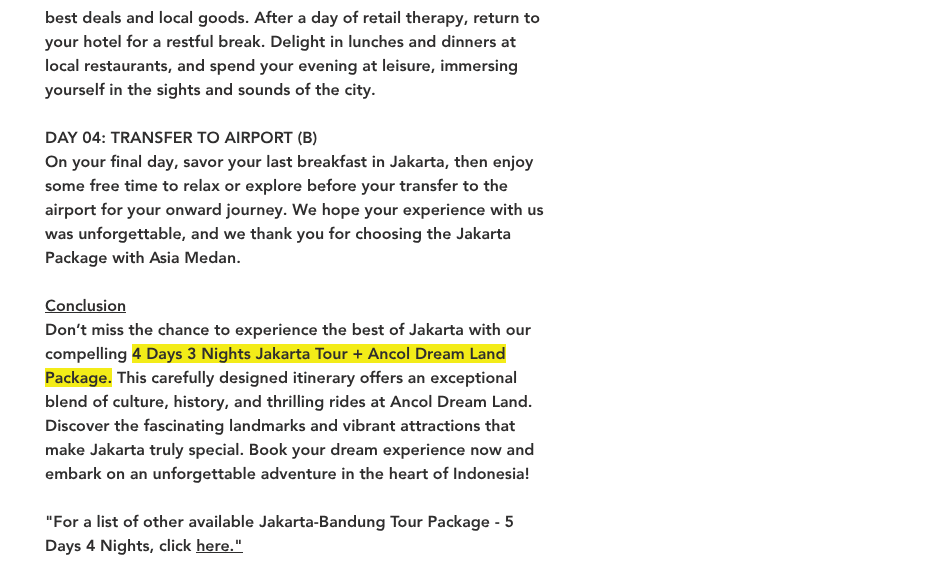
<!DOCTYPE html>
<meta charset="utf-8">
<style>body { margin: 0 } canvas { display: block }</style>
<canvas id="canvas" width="934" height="564"></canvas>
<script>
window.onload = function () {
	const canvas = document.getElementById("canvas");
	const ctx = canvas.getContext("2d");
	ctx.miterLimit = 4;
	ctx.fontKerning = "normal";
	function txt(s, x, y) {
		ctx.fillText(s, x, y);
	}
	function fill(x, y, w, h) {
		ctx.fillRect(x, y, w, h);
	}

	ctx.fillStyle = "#FFFFFF";
	fill(0, 0, 934, 564);
	ctx.fillStyle = "#2F2E2E";
	fill(45, 312, 81, 1);
	ctx.fillStyle = "#F3EC18";
	fill(132, 344, 374, 19);
	fill(45, 368, 67, 19);
	ctx.fillStyle = "#2F2E2E";
	fill(196, 552, 47, 1);
	ctx.font = "900 16px 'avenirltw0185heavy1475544'";
	txt("best deals and local goods. After a day of retail therapy, return to", 45, 23);
	txt("your hotel for a restful break. Delight in lunches and dinners at", 45, 47);
	txt("local restaurants, and spend your evening at leisure, immersing", 45, 71);
	txt("yourself in the sights and sounds of the city.", 45, 95);
	txt("DAY 04: TRANSFER TO AIRPORT (B)", 45, 143);
	txt("On your final day, savor your last breakfast in Jakarta, then enjoy", 45, 167);
	txt("some free time to relax or explore before your transfer to the", 45, 191);
	txt("airport for your onward journey. We hope your experience with us", 45, 215);
	txt("was unforgettable, and we thank you for choosing the Jakarta", 45, 239);
	txt("Package with Asia Medan.", 45, 263);
	txt("Conclusion", 45, 311);
	txt("Don’t miss the chance to experience the best of Jakarta with our", 45, 335);
	txt("compelling", 45, 359);
	txt("4 Days 3 Nights Jakarta Tour + Ancol Dream Land", 132, 359);
	txt("Package. This carefully designed itinerary offers an exceptional", 45, 383);
	txt("blend of culture, history, and thrilling rides at Ancol Dream Land.", 45, 407);
	txt("Discover the fascinating landmarks and vibrant attractions that", 45, 431);
	txt("make Jakarta truly special. Book your dream experience now and", 45, 455);
	txt("embark on an unforgettable adventure in the heart of Indonesia!", 45, 479);
	txt("\"For a list of other available Jakarta-Bandung Tour Package - 5", 45, 527);
	txt("Days 4 Nights, click here.\"", 45, 551);
};
</script>
